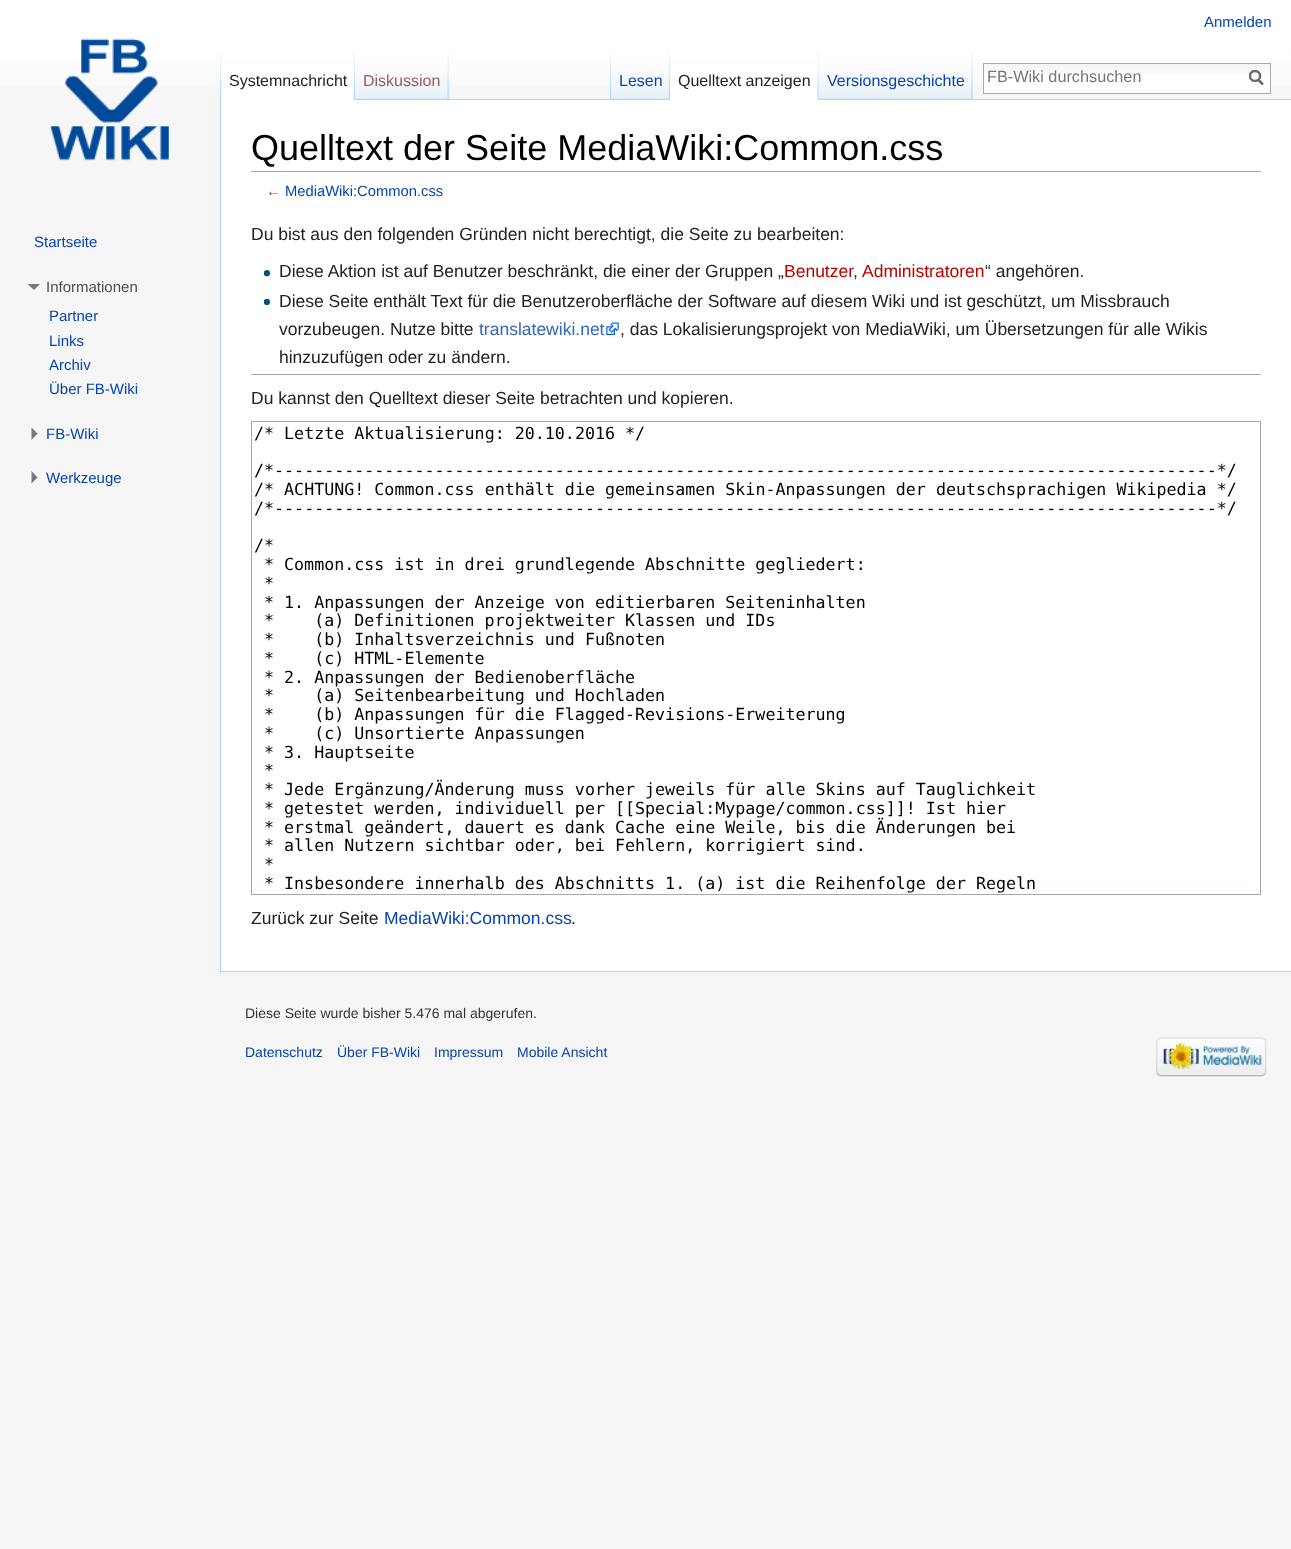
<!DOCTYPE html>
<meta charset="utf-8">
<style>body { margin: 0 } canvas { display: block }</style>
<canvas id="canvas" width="1291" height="1549"></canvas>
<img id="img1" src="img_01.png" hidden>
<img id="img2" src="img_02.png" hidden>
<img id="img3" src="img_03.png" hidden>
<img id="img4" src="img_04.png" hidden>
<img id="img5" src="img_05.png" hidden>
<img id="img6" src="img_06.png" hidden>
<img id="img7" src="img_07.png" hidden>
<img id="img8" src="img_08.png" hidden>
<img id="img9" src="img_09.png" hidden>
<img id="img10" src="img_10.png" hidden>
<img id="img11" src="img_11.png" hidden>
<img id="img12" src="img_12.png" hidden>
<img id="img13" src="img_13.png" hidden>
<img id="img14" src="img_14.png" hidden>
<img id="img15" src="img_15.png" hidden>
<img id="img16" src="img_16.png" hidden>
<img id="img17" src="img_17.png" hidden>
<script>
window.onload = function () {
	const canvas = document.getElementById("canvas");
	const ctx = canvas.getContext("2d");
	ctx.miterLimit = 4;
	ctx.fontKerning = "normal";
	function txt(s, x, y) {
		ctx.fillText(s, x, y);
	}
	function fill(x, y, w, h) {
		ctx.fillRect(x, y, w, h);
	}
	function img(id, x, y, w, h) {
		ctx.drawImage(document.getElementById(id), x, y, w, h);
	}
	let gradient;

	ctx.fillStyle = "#F6F6F6";
	fill(0, 0, 1291, 1549);
	gradient = ctx.createLinearGradient(646, 0, 646, 100);
	gradient.addColorStop(0.5, "#FFFFFF");
	gradient.addColorStop(1, "#F6F6F6");
	ctx.fillStyle = gradient;
	fill(0, 0, 1291, 86);
	img("img1", 220, 50, 1, 49);
	img("img2", 448, 52, 1, 47);
	ctx.fillStyle = "#FFFFFF";
	fill(221, 64, 133, 36);
	img("img3", 353, 50, 2, 50);
	ctx.fillStyle = "#A7D7F9";
	fill(448, 99, 843, 1);
	img("img4", 355, 50, 94, 50);
	img("img5", 447, 52, 2, 48);
	img("img6", 610, 50, 2, 49);
	img("img7", 611, 50, 59, 50);
	img("img8", 668, 50, 2, 49);
	ctx.fillStyle = "#FFFFFF";
	fill(670, 64, 149, 36);
	img("img9", 817, 52, 2, 48);
	ctx.fillStyle = "#F3F3F3";
	fill(972, 50, 1, 50);
	img("img10", 818, 50, 155, 50);
	img("img11", 971, 52, 2, 48);
	ctx.fillStyle = "#FFFFFF";
	fill(984, 74, 286, 19);
	img("img12", 984, 64, 286, 10);
	ctx.strokeStyle = "#AAAAAA";
	ctx.strokeRect(983.5, 63.5, 287, 30);
	ctx.beginPath();
	ctx.moveTo(1263, 84.5);
	ctx.lineTo(1258, 79.5);
	ctx.strokeStyle = "#6C6C6C";
	ctx.lineWidth = 2.5;
	ctx.stroke();
	ctx.save();
	ctx.beginPath();
	ctx.rect(1249, 70, 15, 16);
	ctx.clip();
	ctx.beginPath();
	ctx.arc(1255, 76, 5, 0, Math.PI * 2);
	ctx.stroke();
	ctx.restore();
	img("img13", 50, 38, 119, 123);
	ctx.fillStyle = "#797979";
	ctx.beginPath();
	ctx.moveTo(40, 284);
	ctx.lineTo(34, 290);
	ctx.lineTo(27.5, 284);
	ctx.closePath();
	ctx.fill();
	ctx.beginPath();
	ctx.moveTo(31.5, 427.5);
	ctx.lineTo(37.5, 433.5);
	ctx.lineTo(31.5, 440);
	ctx.closePath();
	ctx.fill();
	ctx.beginPath();
	ctx.moveTo(31.5, 471);
	ctx.lineTo(37.5, 477.5);
	ctx.lineTo(31.5, 483.5);
	ctx.closePath();
	ctx.fill();
	ctx.fillStyle = "#FFFFFF";
	fill(221, 100, 1070, 871);
	ctx.fillStyle = "#A7D7F9";
	fill(220, 971, 1071, 1);
	fill(220, 99, 1, 874);
	ctx.fillStyle = "#A2A9B1";
	fill(251, 171, 1010, 1);
	img("img14", 264, 270, 6, 7);
	img("img15", 264, 298, 6, 7);
	img("img16", 606, 322, 13, 13);
	fill(251, 374, 1010, 1);
	ctx.strokeStyle = "#A2A9B1";
	ctx.lineWidth = 1;
	ctx.strokeRect(251.5, 421.5, 1009, 473);
	img("img17", 1156, 1037, 111, 40);
	ctx.font = "15px Liberation Sans";
	ctx.fillStyle = "#0645AD";
	txt("Anmelden", 1204, 27);
	ctx.font = "16px Liberation Sans";
	ctx.fillStyle = "#222222";
	txt("Systemnachricht", 229, 86);
	ctx.fillStyle = "#A55858";
	txt("Diskussion", 363, 86);
	ctx.fillStyle = "#0645AD";
	txt("Lesen", 619, 86);
	ctx.fillStyle = "#222222";
	txt("Quelltext anzeigen", 678, 86);
	ctx.fillStyle = "#0645AD";
	txt("Versionsgeschichte", 827, 86);
	ctx.font = "16.25px Liberation Sans";
	ctx.fillStyle = "#72777D";
	txt("FB-Wiki durchsuchen", 987, 82);
	ctx.font = "15px Liberation Sans";
	ctx.fillStyle = "#0645AD";
	txt("Startseite", 34, 247);
	ctx.fillStyle = "#4D4D4D";
	txt("Informationen", 46, 292);
	ctx.fillStyle = "#0645AD";
	txt("Partner", 49, 321);
	txt("Links", 49, 346);
	txt("Archiv", 49, 370);
	txt("Über FB-Wiki", 49, 394);
	txt("FB-Wiki", 46, 439);
	txt("Werkzeuge", 46, 483);
	ctx.font = "36px Liberation Sans";
	ctx.fillStyle = "#000000";
	txt("Quelltext der Seite MediaWiki:Common.css", 251, 160);
	ctx.font = "14.75px Liberation Sans";
	ctx.fillStyle = "#545454";
	txt("←", 266, 196);
	ctx.fillStyle = "#0645AD";
	txt("MediaWiki:Common.css", 285, 196);
	ctx.font = "17.5px Liberation Sans";
	ctx.fillStyle = "#222222";
	txt("Du bist aus den folgenden Gründen nicht berechtigt, die Seite zu bearbeiten:", 251, 240);
	txt("Diese Aktion ist auf Benutzer beschränkt, die einer der Gruppen „", 279, 277);
	ctx.fillStyle = "#BA0000";
	txt("Benutzer", 784, 277);
	ctx.fillStyle = "#222222";
	txt(",", 853, 277);
	ctx.fillStyle = "#BA0000";
	txt("Administratoren", 862, 277);
	ctx.fillStyle = "#222222";
	txt("“ angehören.", 985, 277);
	txt("Diese Seite enthält Text für die Benutzeroberfläche der Software auf diesem Wiki und ist geschützt, um Missbrauch", 279, 307);
	txt("vorzubeugen. Nutze bitte", 279, 335);
	ctx.fillStyle = "#3366BB";
	txt("translatewiki.net", 479, 335);
	ctx.fillStyle = "#222222";
	txt(", das Lokalisierungsprojekt von MediaWiki, um Übersetzungen für alle Wikis", 620, 335);
	txt("hinzuzufügen oder zu ändern.", 279, 363);
	txt("Du kannst den Quelltext dieser Seite betrachten und kopieren.", 251, 404);
	ctx.font = "16.67px DejaVu Sans Mono";
	ctx.fillStyle = "#000000";
	txt("/* Letzte Aktualisierung: 20.10.2016 */", 254, 439);
	txt("/*----------------------------------------------------------------------------------------------*/", 254, 476);
	txt("/* ACHTUNG! Common.css enthält die gemeinsamen Skin-Anpassungen der deutschsprachigen Wikipedia */", 254, 495);
	txt("/*----------------------------------------------------------------------------------------------*/", 254, 514);
	txt("/*", 254, 551);
	txt("* Common.css ist in drei grundlegende Abschnitte gegliedert:", 264, 570);
	txt("*", 264, 589);
	txt("* 1. Anpassungen der Anzeige von editierbaren Seiteninhalten", 264, 608);
	txt("*    (a) Definitionen projektweiter Klassen und IDs", 264, 626);
	txt("*    (b) Inhaltsverzeichnis und Fußnoten", 264, 645);
	txt("*    (c) HTML-Elemente", 264, 664);
	txt("* 2. Anpassungen der Bedienoberfläche", 264, 683);
	txt("*    (a) Seitenbearbeitung und Hochladen", 264, 701);
	txt("*    (b) Anpassungen für die Flagged-Revisions-Erweiterung", 264, 720);
	txt("*    (c) Unsortierte Anpassungen", 264, 739);
	txt("* 3. Hauptseite", 264, 758);
	txt("*", 264, 776);
	txt("* Jede Ergänzung/Änderung muss vorher jeweils für alle Skins auf Tauglichkeit", 264, 795);
	txt("* getestet werden, individuell per [[Special:Mypage/common.css]]! Ist hier", 264, 814);
	txt("* erstmal geändert, dauert es dank Cache eine Weile, bis die Änderungen bei", 264, 833);
	txt("* allen Nutzern sichtbar oder, bei Fehlern, korrigiert sind.", 264, 851);
	txt("*", 264, 870);
	txt("* Insbesondere innerhalb des Abschnitts 1. (a) ist die Reihenfolge der Regeln", 264, 889);
	ctx.font = "17.5px Liberation Sans";
	ctx.fillStyle = "#222222";
	txt("Zurück zur Seite", 251, 924);
	ctx.fillStyle = "#0645AD";
	txt("MediaWiki:Common.css", 384, 924);
	ctx.fillStyle = "#222222";
	txt(".", 571, 924);
	ctx.font = "14px Liberation Sans";
	ctx.fillStyle = "#333333";
	txt("Diese Seite wurde bisher 5.476 mal abgerufen.", 245, 1018);
	ctx.fillStyle = "#0645AD";
	txt("Datenschutz", 245, 1057);
	txt("Über FB-Wiki", 337, 1057);
	txt("Impressum", 434, 1057);
	txt("Mobile Ansicht", 517, 1057);
};
</script>
